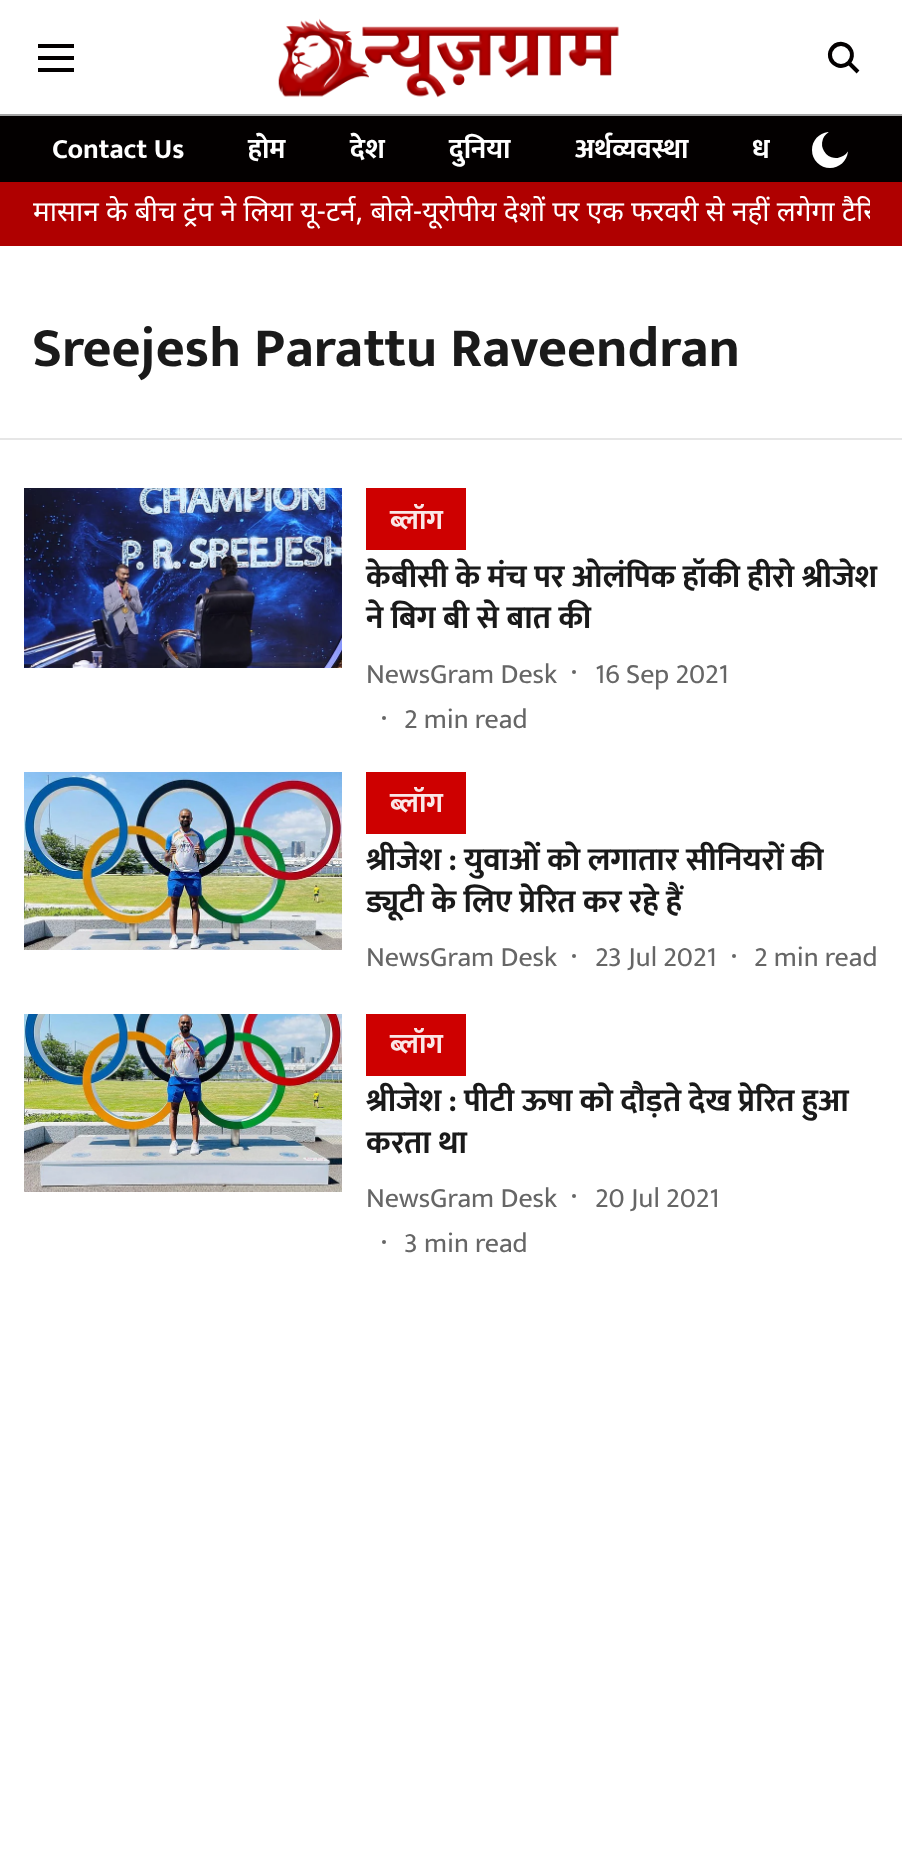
<!DOCTYPE html>
<meta charset="utf-8">
<style>body { margin: 0 } canvas { display: block }</style>
<canvas id="canvas" width="902" height="1865"></canvas>
<img id="img1" src="img_01.png" hidden>
<img id="img2" src="img_02.png" hidden>
<img id="img3" src="img_03.png" hidden>
<img id="img4" src="img_04.png" hidden>
<img id="img5" src="img_05.png" hidden>
<img id="img6" src="img_06.png" hidden>
<img id="img7" src="img_07.png" hidden>
<script>
window.onload = function () {
	const canvas = document.getElementById("canvas");
	const ctx = canvas.getContext("2d");
	ctx.miterLimit = 4;
	ctx.fontKerning = "normal";
	function txt(s, x, y) {
		ctx.fillText(s, x, y);
	}
	function fill(x, y, w, h) {
		ctx.fillRect(x, y, w, h);
	}
	function img(id, x, y, w, h) {
		ctx.drawImage(document.getElementById(id), x, y, w, h);
	}

	ctx.fillStyle = "#FFFFFF";
	fill(0, 0, 902, 1865);
	ctx.fillStyle = "#A4A4A4";
	fill(0, 114, 902, 2);
	img("img1", 38, 44, 36, 28);
	img("img2", 278, 18, 341, 80);
	img("img3", 827, 41, 33, 33);
	ctx.fillStyle = "#030000";
	fill(0, 116, 902, 66);
	img("img4", 812, 132, 36, 36);
	ctx.fillStyle = "#AF0000";
	fill(0, 182, 902, 64);
	ctx.fillStyle = "#E6E6E6";
	fill(0, 438, 902, 2);
	img("img5", 24, 488, 318, 180);
	ctx.fillStyle = "#CE0000";
	fill(366, 488, 100, 62);
	ctx.fillStyle = "#666666";
	ctx.beginPath();
	ctx.arc(574, 672, 2, 0, Math.PI * 2);
	ctx.fill();
	ctx.beginPath();
	ctx.arc(384, 718, 2, 0, Math.PI * 2);
	ctx.fill();
	img("img6", 24, 772, 318, 178);
	ctx.fillStyle = "#CE0000";
	fill(366, 772, 100, 62);
	ctx.fillStyle = "#666666";
	ctx.beginPath();
	ctx.arc(574, 956, 2, 0, Math.PI * 2);
	ctx.fill();
	ctx.beginPath();
	ctx.arc(734, 956, 2, 0, Math.PI * 2);
	ctx.fill();
	img("img7", 24, 1014, 318, 178);
	ctx.fillStyle = "#CE0000";
	fill(366, 1014, 100, 62);
	ctx.fillStyle = "#666666";
	ctx.beginPath();
	ctx.arc(574, 1196, 2, 0, Math.PI * 2);
	ctx.fill();
	ctx.beginPath();
	ctx.arc(384, 1242, 2, 0, Math.PI * 2);
	ctx.fill();
	ctx.font = "bold 28px Mukta";
	ctx.fillStyle = "#FFFFFF";
	txt("Contact Us", 52, 158);
	txt("होम", 248, 158);
	txt("देश", 350, 158);
	txt("दुनिया", 449, 158);
	txt("अर्थव्यवस्था", 575, 158);
	txt("ध", 752, 158);
	ctx.save();
	ctx.beginPath();
	ctx.rect(32, 194, 838, 42);
	ctx.clip();
	ctx.font = "28px Noto Sans Devanagari";
	txt("मासान के बीच ट्रंप ने लिया यू-टर्न, बोले-यूरोपीय देशों पर एक फरवरी से नहीं लगेगा टैरि", 33, 221);
	ctx.restore();
	ctx.font = "bold 56px Mukta";
	ctx.fillStyle = "#1A1A1A";
	txt("Sreejesh Parattu Raveendran", 32, 366);
	ctx.font = "bold 28px Mukta";
	ctx.fillStyle = "#FAE6E6";
	txt("ब्लॉग", 390, 529);
	ctx.font = "bold 32px Mukta";
	ctx.fillStyle = "#1A1A1A";
	txt("केबीसी के मंच पर ओलंपिक हॉकी हीरो श्रीजेश", 366, 587);
	txt("ने बिग बी से बात की", 366, 628);
	ctx.font = "28px Mukta";
	ctx.fillStyle = "#666666";
	txt("NewsGram Desk", 366, 683);
	txt("16 Sep 2021", 595, 683);
	txt("2 min read", 404, 728);
	ctx.font = "bold 28px Mukta";
	ctx.fillStyle = "#FAE6E6";
	txt("ब्लॉग", 390, 812);
	ctx.font = "bold 32px Mukta";
	ctx.fillStyle = "#1A1A1A";
	txt("श्रीजेश : युवाओं को लगातार सीनियरों की", 366, 870);
	txt("ड्यूटी के लिए प्रेरित कर रहे हैं", 366, 912);
	ctx.font = "28px Mukta";
	ctx.fillStyle = "#666666";
	txt("NewsGram Desk", 366, 966);
	txt("23 Jul 2021", 595, 966);
	txt("2 min read", 754, 966);
	ctx.font = "bold 28px Mukta";
	ctx.fillStyle = "#FAE6E6";
	txt("ब्लॉग", 390, 1053);
	ctx.font = "bold 32px Mukta";
	ctx.fillStyle = "#1A1A1A";
	txt("श्रीजेश : पीटी ऊषा को दौड़ते देख प्रेरित हुआ", 366, 1111);
	txt("करता था", 366, 1153);
	ctx.font = "28px Mukta";
	ctx.fillStyle = "#666666";
	txt("NewsGram Desk", 366, 1207);
	txt("20 Jul 2021", 595, 1207);
	txt("3 min read", 404, 1252);
};
</script>
